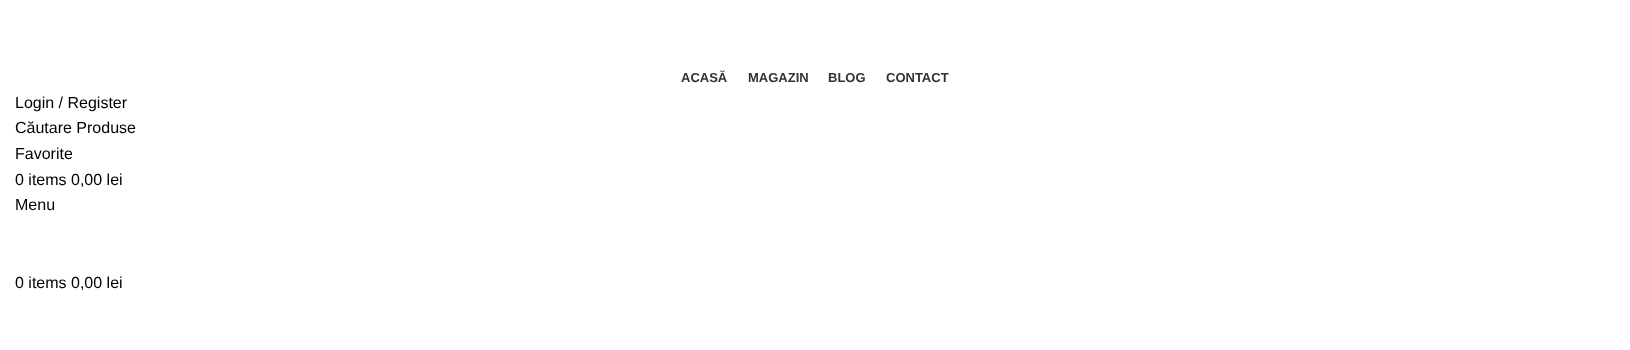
<!DOCTYPE html>
<meta charset="utf-8">
<style>body { margin: 0 } canvas { display: block }</style>
<canvas id="canvas" width="1630" height="350"></canvas>
<script>
window.onload = function () {
	const canvas = document.getElementById("canvas");
	const ctx = canvas.getContext("2d");
	ctx.miterLimit = 4;
	ctx.fontKerning = "normal";
	function txt(s, x, y) {
		ctx.fillText(s, x, y);
	}
	function fill(x, y, w, h) {
		ctx.fillRect(x, y, w, h);
	}

	ctx.fillStyle = "#FFFFFF";
	fill(0, 0, 1630, 350);
	ctx.font = "bold 13px Liberation Sans";
	ctx.fillStyle = "#333333";
	txt("ACASĂ", 681, 82);
	txt("MAGAZIN", 748, 82);
	txt("BLOG", 828, 82);
	txt("CONTACT", 886, 82);
	ctx.font = "16px Liberation Sans";
	ctx.fillStyle = "#000000";
	txt("Login / Register", 15, 108);
	txt("Căutare Produse", 15, 133);
	txt("Favorite", 15, 159);
	txt("0 items 0,00 lei", 15, 185);
	txt("Menu", 15, 210);
	txt("0 items 0,00 lei", 15, 288);
};
</script>
